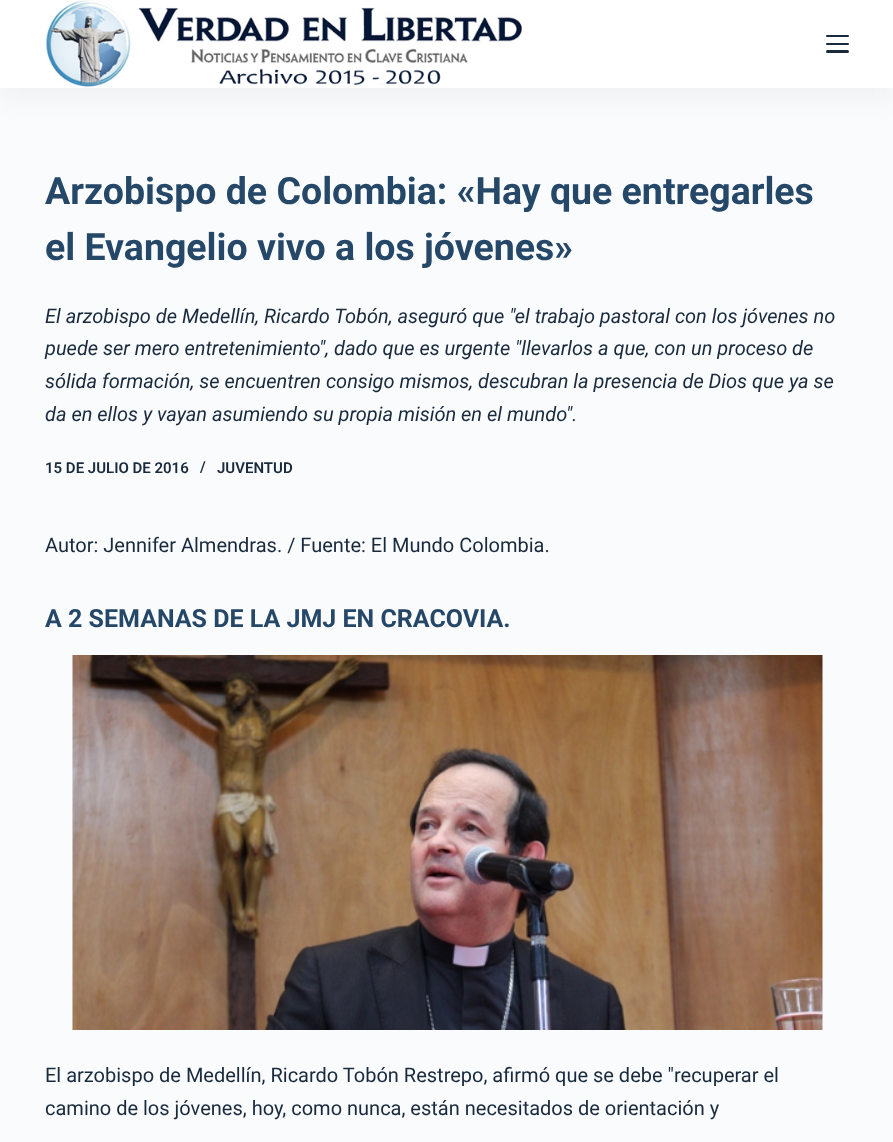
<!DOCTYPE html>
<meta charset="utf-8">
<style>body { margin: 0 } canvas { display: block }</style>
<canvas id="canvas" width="893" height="1142"></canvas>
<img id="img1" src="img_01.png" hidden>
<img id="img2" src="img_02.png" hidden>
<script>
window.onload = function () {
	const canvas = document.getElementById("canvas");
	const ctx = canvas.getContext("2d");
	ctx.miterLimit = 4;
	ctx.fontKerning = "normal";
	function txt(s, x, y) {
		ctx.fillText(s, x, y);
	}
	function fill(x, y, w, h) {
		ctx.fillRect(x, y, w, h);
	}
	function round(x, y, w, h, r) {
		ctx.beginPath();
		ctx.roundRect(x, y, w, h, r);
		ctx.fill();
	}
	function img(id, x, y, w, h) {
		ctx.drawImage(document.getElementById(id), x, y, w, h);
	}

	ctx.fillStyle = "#FAFBFC";
	fill(0, 0, 893, 1142);
	ctx.fillStyle = "rgba(44, 62, 80, 0.05)";
	ctx.filter = "blur(12.5px)";
	ctx.beginPath();
	ctx.rect(0, 13, 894, 87);
	ctx.fill();
	ctx.filter = "none";
	ctx.fillStyle = "#FFFFFF";
	fill(0, 0, 893, 88);
	img("img1", 45, 0, 477, 87);
	ctx.fillStyle = "#192A3D";
	round(826, 35, 23, 2, 1);
	round(826, 43, 23, 2, 1);
	round(826, 50, 23, 3, 1.5);
	img("img2", 72, 655, 751, 375);
	ctx.font = "bold 37.5px Roboto";
	ctx.fillStyle = "#254768";
	txt("Arzobispo de Colombia: «Hay que entregarles", 45, 204);
	txt("el Evangelio vivo a los jóvenes»", 45, 260);
	ctx.font = "italic 20px Roboto";
	ctx.fillStyle = "#192A3D";
	txt("El arzobispo de Medellín, Ricardo Tobón, aseguró que \"el trabajo pastoral con los jóvenes no", 45, 323);
	txt("puede ser mero entretenimiento\", dado que es urgente \"llevarlos a que, con un proceso de", 45, 355);
	txt("sólida formación, se encuentren consigo mismos, descubran la presencia de Dios que ya se", 45, 388);
	txt("da en ellos y vayan asumiendo su propia misión en el mundo\".", 45, 421);
	ctx.font = "600 15px Roboto";
	txt("15 DE JULIO DE 2016", 45, 473);
	txt("/", 200, 472);
	txt("JUVENTUD", 217, 473);
	ctx.font = "20px Roboto";
	txt("Autor: Jennifer Almendras. / Fuente: El Mundo Colombia.", 45, 552);
	ctx.font = "bold 25px Roboto";
	ctx.fillStyle = "#254768";
	txt("A 2 SEMANAS DE LA JMJ EN CRACOVIA.", 45, 627);
	ctx.font = "20px Roboto";
	ctx.fillStyle = "#192A3D";
	txt("El arzobispo de Medellín, Ricardo Tobón Restrepo, afirmó que se debe \"recuperar el", 45, 1082);
	txt("camino de los jóvenes, hoy, como nunca, están necesitados de orientación y", 45, 1115);
};
</script>
